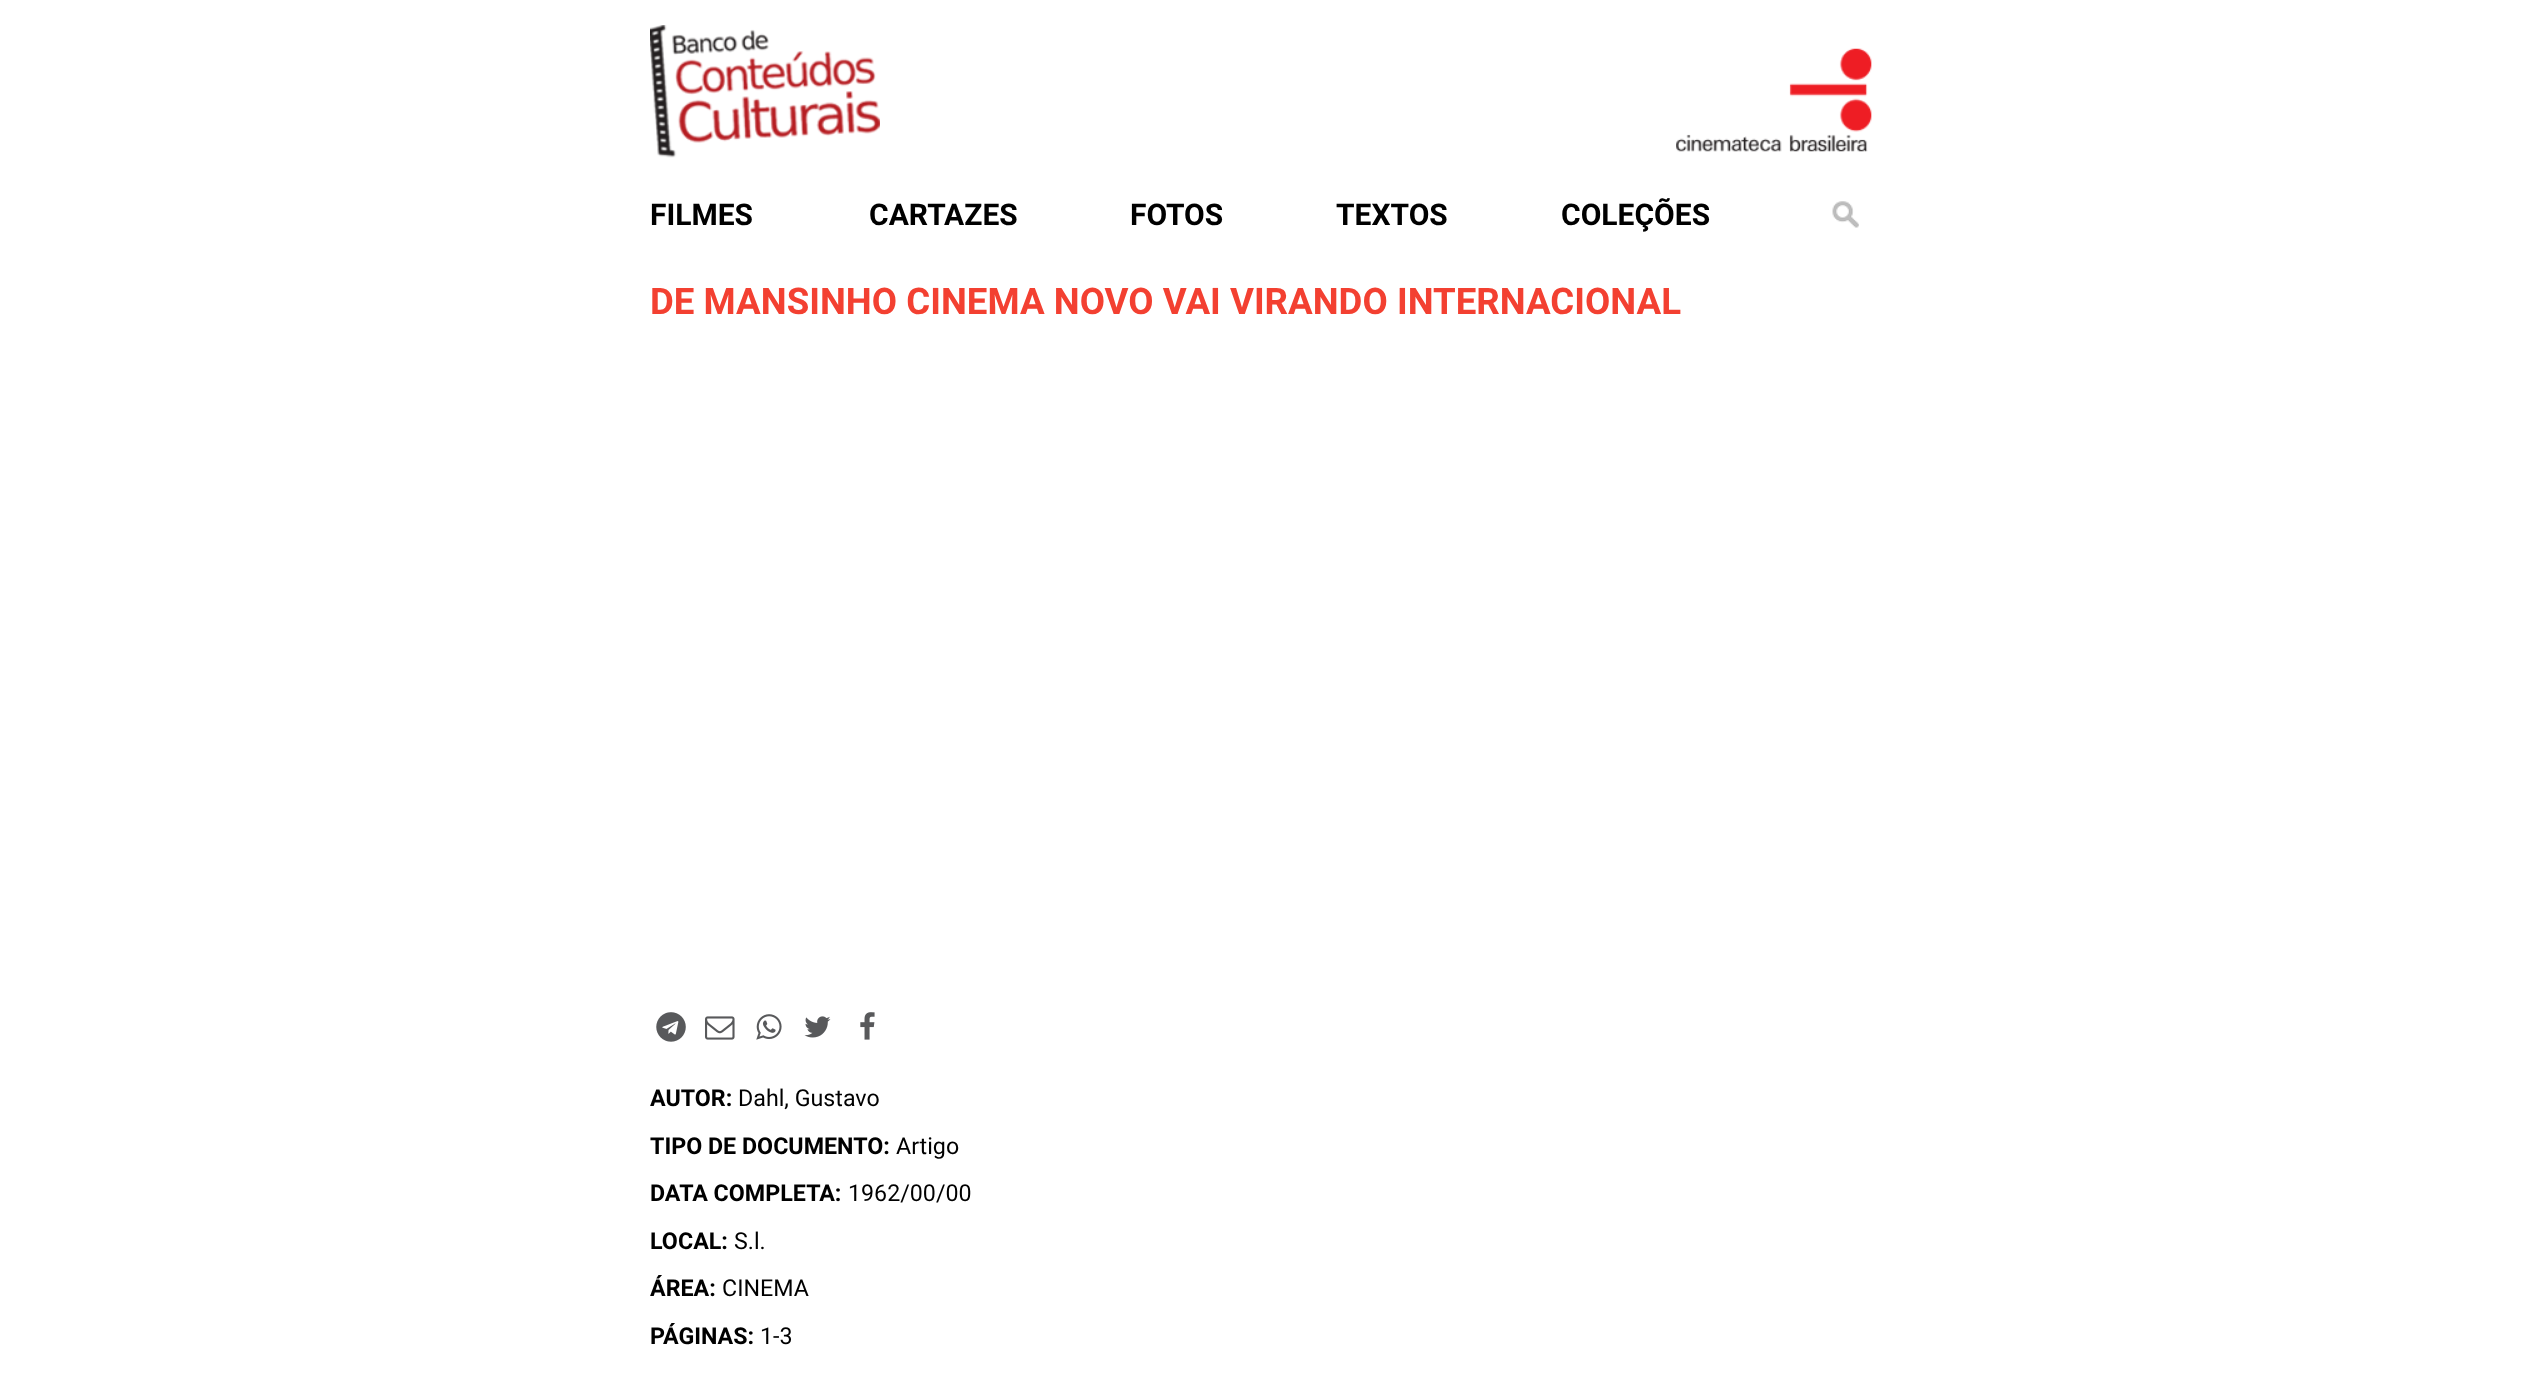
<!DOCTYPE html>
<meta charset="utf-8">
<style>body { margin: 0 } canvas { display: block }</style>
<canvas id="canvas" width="2524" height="1375"></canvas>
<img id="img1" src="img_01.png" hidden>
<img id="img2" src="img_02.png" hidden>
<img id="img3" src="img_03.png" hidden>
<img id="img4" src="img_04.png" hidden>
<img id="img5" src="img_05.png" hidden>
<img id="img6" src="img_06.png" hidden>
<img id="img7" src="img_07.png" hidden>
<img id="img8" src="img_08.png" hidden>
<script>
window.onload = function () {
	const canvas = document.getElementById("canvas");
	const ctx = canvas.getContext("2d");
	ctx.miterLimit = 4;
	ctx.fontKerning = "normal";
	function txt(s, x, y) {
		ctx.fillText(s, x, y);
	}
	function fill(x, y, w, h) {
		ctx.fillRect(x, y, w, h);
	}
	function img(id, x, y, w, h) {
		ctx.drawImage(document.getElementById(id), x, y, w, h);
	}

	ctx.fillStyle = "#FFFFFF";
	fill(0, 0, 2524, 1375);
	img("img1", 650, 25, 230, 133);
	img("img2", 1676, 48, 196, 104);
	img("img3", 1832, 201, 27, 27);
	img("img4", 656, 1012, 30, 30);
	img("img5", 705, 1016, 30, 24);
	img("img6", 756, 1014, 26, 26);
	img("img7", 804, 1016, 27, 22);
	img("img8", 860, 1012, 15, 28);
	ctx.font = "bold 30px Roboto";
	ctx.fillStyle = "#000000";
	txt("FILMES", 650, 225);
	txt("CARTAZES", 869, 225);
	txt("FOTOS", 1130, 225);
	txt("TEXTOS", 1336, 225);
	txt("COLEÇÕES", 1561, 225);
	ctx.font = "bold 36.7px Roboto";
	ctx.fillStyle = "#F34031";
	txt("DE MANSINHO CINEMA NOVO VAI VIRANDO INTERNACIONAL", 650, 314);
	ctx.font = "bold 23.25px Roboto";
	ctx.fillStyle = "#000000";
	txt("AUTOR:", 650, 1106);
	ctx.font = "23.25px Roboto";
	txt("Dahl, Gustavo", 738, 1106);
	ctx.font = "bold 23.25px Roboto";
	txt("TIPO DE DOCUMENTO:", 650, 1154);
	ctx.font = "23.25px Roboto";
	txt("Artigo", 896, 1154);
	ctx.font = "bold 23.25px Roboto";
	txt("DATA COMPLETA:", 650, 1201);
	ctx.font = "23.25px Roboto";
	txt("1962/00/00", 848, 1201);
	ctx.font = "bold 23.25px Roboto";
	txt("LOCAL:", 650, 1249);
	ctx.font = "23.25px Roboto";
	txt("S.l.", 734, 1249);
	ctx.font = "bold 23.25px Roboto";
	txt("ÁREA:", 650, 1296);
	ctx.font = "23.25px Roboto";
	txt("CINEMA", 722, 1296);
	ctx.font = "bold 23.25px Roboto";
	txt("PÁGINAS:", 650, 1344);
	ctx.font = "23.25px Roboto";
	txt("1-3", 760, 1344);
};
</script>
